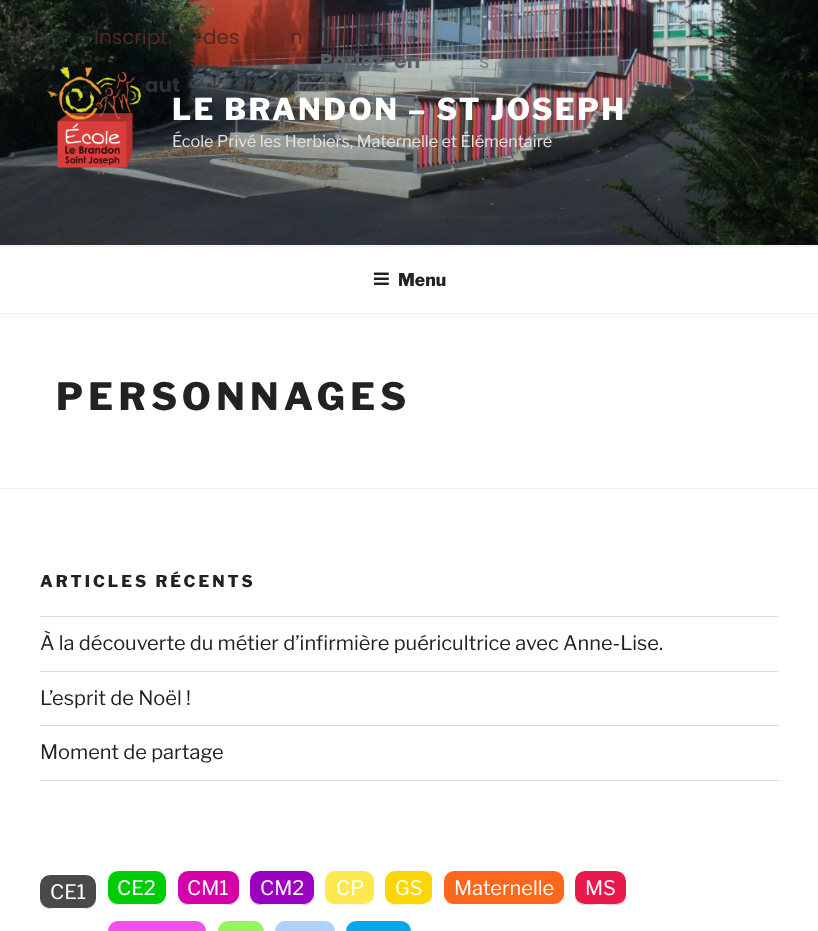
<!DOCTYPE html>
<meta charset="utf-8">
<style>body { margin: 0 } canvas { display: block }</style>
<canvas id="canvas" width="818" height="931"></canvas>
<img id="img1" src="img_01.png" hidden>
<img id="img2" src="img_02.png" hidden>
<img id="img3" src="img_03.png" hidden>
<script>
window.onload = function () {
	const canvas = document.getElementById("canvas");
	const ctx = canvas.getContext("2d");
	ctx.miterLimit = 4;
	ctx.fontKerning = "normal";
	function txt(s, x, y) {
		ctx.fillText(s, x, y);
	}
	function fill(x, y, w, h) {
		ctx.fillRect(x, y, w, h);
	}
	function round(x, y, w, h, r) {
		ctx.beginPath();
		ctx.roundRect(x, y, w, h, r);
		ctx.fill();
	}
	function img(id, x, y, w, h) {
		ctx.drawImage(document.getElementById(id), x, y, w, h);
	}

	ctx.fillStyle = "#FFFFFF";
	fill(0, 0, 818, 931);
	ctx.fillStyle = "#FAFAFA";
	fill(0, 245, 818, 1);
	img("img1", 0, 0, 818, 245);
	img("img2", 46, 67, 95, 101);
	ctx.fillStyle = "#EEEEEE";
	fill(0, 246, 818, 1);
	fill(0, 313, 818, 1);
	img("img3", 373, 272, 16, 13);
	fill(0, 488, 818, 1);
	ctx.fillStyle = "#DDDDDD";
	fill(40, 616, 739, 1);
	fill(40, 671, 739, 1);
	fill(40, 725, 739, 1);
	fill(40, 780, 739, 1);
	ctx.fillStyle = "#494949";
	round(40, 875, 56, 34, 10);
	ctx.fillStyle = "#FFFFFF";
	ctx.beginPath();
	ctx.moveTo(40, 898);
	ctx.bezierCurveTo(40, 909, 48, 909, 56, 909);
	ctx.lineTo(80, 909);
	ctx.bezierCurveTo(88, 909, 96, 909, 96, 898);
	ctx.bezierCurveTo(96, 903, 92, 908, 86, 908);
	ctx.lineTo(50, 908);
	ctx.bezierCurveTo(44, 908, 40, 903, 40, 898);
	ctx.closePath();
	ctx.fill();
	ctx.fillStyle = "#00CB07";
	round(108, 871, 58, 34, 10);
	ctx.fillStyle = "#FFFFFF";
	ctx.beginPath();
	ctx.moveTo(108, 894);
	ctx.bezierCurveTo(108, 905, 116, 905, 124, 905);
	ctx.lineTo(150, 905);
	ctx.bezierCurveTo(158, 905, 166, 905, 166, 894);
	ctx.bezierCurveTo(166, 899, 162, 904, 156, 904);
	ctx.lineTo(118, 904);
	ctx.bezierCurveTo(112, 904, 108, 899, 108, 894);
	ctx.closePath();
	ctx.fill();
	ctx.fillStyle = "#D600AA";
	round(178, 871, 61, 34, 10);
	ctx.fillStyle = "#FFFFFF";
	ctx.beginPath();
	ctx.moveTo(178, 894);
	ctx.bezierCurveTo(178, 905, 186, 905, 195, 905);
	ctx.lineTo(222, 905);
	ctx.bezierCurveTo(231, 905, 239, 905, 239, 894);
	ctx.bezierCurveTo(239, 899, 234, 904, 229, 904);
	ctx.lineTo(188, 904);
	ctx.bezierCurveTo(182, 904, 178, 899, 178, 894);
	ctx.closePath();
	ctx.fill();
	ctx.fillStyle = "#9900BF";
	round(250, 871, 64, 34, 10);
	ctx.fillStyle = "#FFFFFF";
	ctx.beginPath();
	ctx.moveTo(250, 894);
	ctx.bezierCurveTo(250, 905, 259, 905, 267, 905);
	ctx.lineTo(297, 905);
	ctx.bezierCurveTo(305, 905, 314, 905, 314, 894);
	ctx.bezierCurveTo(314, 899, 309, 904, 304, 904);
	ctx.lineTo(260, 904);
	ctx.bezierCurveTo(254, 904, 250, 899, 250, 894);
	ctx.closePath();
	ctx.fill();
	ctx.fillStyle = "#FCE850";
	round(325, 871, 49, 34, 10);
	ctx.fillStyle = "#FFFFFF";
	ctx.beginPath();
	ctx.moveTo(325, 894);
	ctx.bezierCurveTo(325, 908, 340, 905, 350, 905);
	ctx.bezierCurveTo(359, 905, 374, 908, 374, 894);
	ctx.bezierCurveTo(374, 907, 357, 904, 350, 904);
	ctx.bezierCurveTo(341, 904, 325, 907, 325, 894);
	ctx.closePath();
	ctx.fill();
	ctx.fillStyle = "#FCD603";
	round(385, 871, 48, 34, 10);
	ctx.fillStyle = "#FFFFFF";
	ctx.beginPath();
	ctx.moveTo(385, 894);
	ctx.bezierCurveTo(385, 908, 399, 905, 409, 905);
	ctx.bezierCurveTo(417, 905, 431, 908, 433, 897);
	ctx.lineTo(433, 888);
	ctx.bezierCurveTo(433, 883, 434, 878, 431, 875);
	ctx.bezierCurveTo(433, 878, 432, 883, 432, 887);
	ctx.lineTo(432, 896);
	ctx.bezierCurveTo(430, 907, 416, 904, 408, 904);
	ctx.bezierCurveTo(400, 904, 385, 907, 385, 894);
	ctx.closePath();
	ctx.fill();
	ctx.fillStyle = "#FF671C";
	round(444, 871, 120, 34, 10);
	ctx.fillStyle = "#FFFFFF";
	ctx.beginPath();
	ctx.moveTo(444, 894);
	ctx.bezierCurveTo(444, 909, 461, 905, 471, 905);
	ctx.lineTo(537, 905);
	ctx.bezierCurveTo(547, 905, 564, 909, 564, 894);
	ctx.bezierCurveTo(564, 899, 559, 904, 554, 904);
	ctx.lineTo(454, 904);
	ctx.bezierCurveTo(448, 904, 444, 899, 444, 894);
	ctx.closePath();
	ctx.fill();
	ctx.fillStyle = "#E8194D";
	round(575, 871, 51, 34, 10);
	ctx.fillStyle = "#FFFFFF";
	ctx.beginPath();
	ctx.moveTo(575, 894);
	ctx.bezierCurveTo(575, 908, 591, 905, 600, 905);
	ctx.bezierCurveTo(610, 905, 626, 908, 626, 894);
	ctx.bezierCurveTo(626, 907, 609, 904, 600, 904);
	ctx.bezierCurveTo(592, 904, 575, 907, 575, 894);
	ctx.closePath();
	ctx.fill();
	ctx.fillStyle = "#F24FEC";
	round(108, 921, 98, 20, 10);
	ctx.fillStyle = "#96F45F";
	round(218, 921, 46, 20, 10);
	ctx.fillStyle = "#ADD2FF";
	round(275, 921, 60, 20, 10);
	ctx.fillStyle = "#00A9ED";
	round(346, 921, 65, 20, 10);
	ctx.font = "20px Poppins";
	ctx.fillStyle = "#4E2A24";
	txt("Inscript", 94, 44);
	txt("des", 203, 44);
	txt("n", 290, 44);
	ctx.font = "bold 20px Poppins";
	ctx.fillStyle = "#5D5F66";
	txt("Parlez-en", 320, 68);
	ctx.fillStyle = "#2A3135";
	txt("aut", 145, 92);
	ctx.font = "20px Poppins";
	ctx.fillStyle = "#7F8186";
	txt("s", 479, 68);
	txt("e", 666, 68);
	ctx.letterSpacing = "2.4px";
	ctx.font = "100 30px Libre Franklin";
	ctx.fillStyle = "#FFFFFF";
	txt("LE BRANDON – ST JOSEPH", 172, 120);
	ctx.letterSpacing = "0px";
	ctx.font = "100 16.25px 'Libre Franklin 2'";
	ctx.fillStyle = "#E4E2E2";
	txt("École Privé les Herbiers, Maternelle et Élémentaire", 172, 147);
	ctx.font = "100 17.5px Libre Franklin";
	ctx.fillStyle = "#222222";
	txt("Menu", 398, 286);
	ctx.letterSpacing = "5.25px";
	ctx.font = "100 37.5px Libre Franklin";
	txt("PERSONNAGES", 56, 410);
	ctx.letterSpacing = "3px";
	ctx.font = "100 16.25px Libre Franklin";
	txt("ARTICLES RÉCENTS", 40, 587);
	ctx.letterSpacing = "0px";
	ctx.font = "100 20px 'Libre Franklin 2'";
	txt("À la découverte du métier d’infirmière puéricultrice avec Anne-Lise.", 40, 650);
	txt("L’esprit de Noël !", 40, 705);
	txt("Moment de partage", 40, 759);
	ctx.fillStyle = "#FFFFFF";
	txt("CE1", 50, 899);
	txt("CE2", 117, 895);
	txt("CM1", 187, 895);
	txt("CM2", 260, 895);
	txt("CP", 336, 895);
	txt("GS", 395, 895);
	txt("Maternelle", 454, 895);
	txt("MS", 585, 895);
};
</script>
